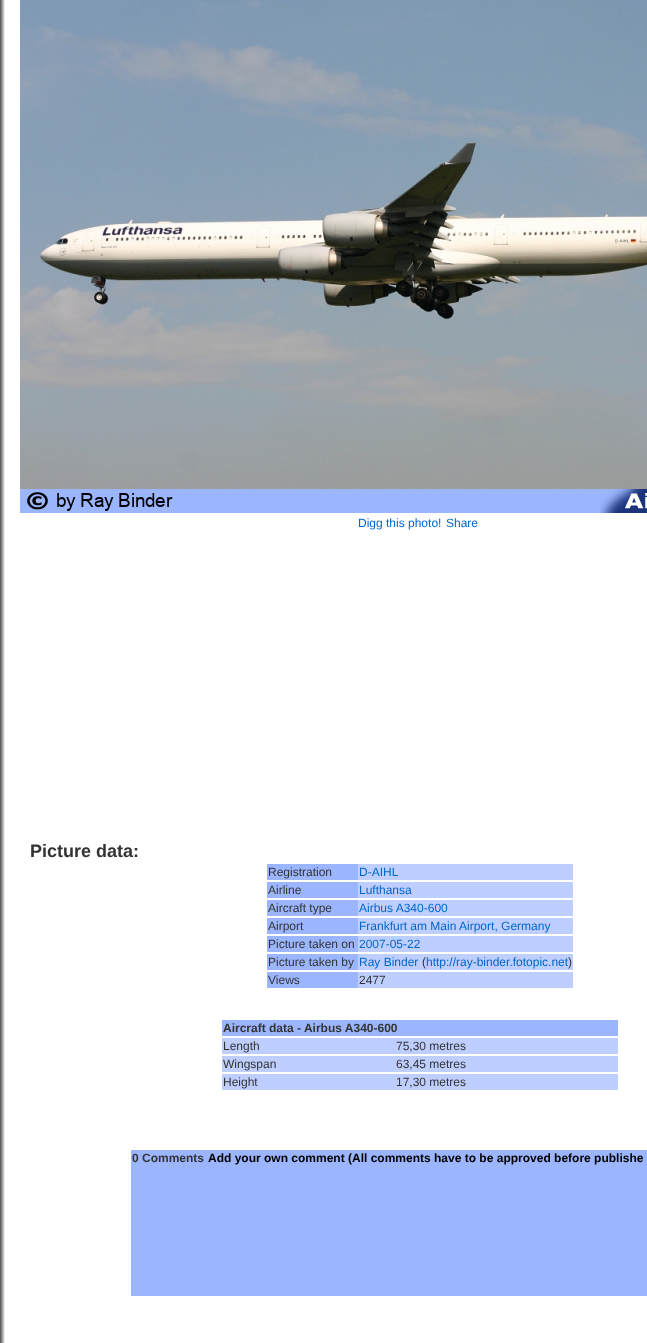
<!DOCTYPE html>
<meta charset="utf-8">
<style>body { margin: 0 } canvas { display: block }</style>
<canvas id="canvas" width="647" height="1343"></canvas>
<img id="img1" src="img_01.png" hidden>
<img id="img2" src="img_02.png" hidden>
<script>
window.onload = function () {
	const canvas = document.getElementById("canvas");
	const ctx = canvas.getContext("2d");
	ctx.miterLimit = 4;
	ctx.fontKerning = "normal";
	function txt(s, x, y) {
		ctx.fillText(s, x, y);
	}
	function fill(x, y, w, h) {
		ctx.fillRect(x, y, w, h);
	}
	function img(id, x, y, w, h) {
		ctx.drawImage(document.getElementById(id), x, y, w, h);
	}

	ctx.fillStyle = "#FFFFFF";
	fill(0, 0, 647, 1343);
	img("img1", 0, 0, 647, 1343);
	img("img2", 20, 0, 627, 513);
	ctx.fillStyle = "#9BB6FE";
	fill(267, 864, 91, 16);
	ctx.fillStyle = "#BECEFF";
	fill(358, 864, 215, 16);
	ctx.fillStyle = "#9BB6FE";
	fill(267, 882, 91, 16);
	ctx.fillStyle = "#BECEFF";
	fill(358, 882, 215, 16);
	ctx.fillStyle = "#9BB6FE";
	fill(267, 900, 91, 16);
	ctx.fillStyle = "#BECEFF";
	fill(358, 900, 215, 16);
	ctx.fillStyle = "#9BB6FE";
	fill(267, 918, 91, 16);
	ctx.fillStyle = "#BECEFF";
	fill(358, 918, 215, 16);
	ctx.fillStyle = "#9BB6FE";
	fill(267, 936, 91, 16);
	ctx.fillStyle = "#BECEFF";
	fill(358, 936, 215, 16);
	ctx.fillStyle = "#9BB6FE";
	fill(267, 954, 91, 16);
	ctx.fillStyle = "#BECEFF";
	fill(358, 954, 215, 16);
	ctx.fillStyle = "#9BB6FE";
	fill(267, 972, 91, 16);
	ctx.fillStyle = "#BECEFF";
	fill(358, 972, 215, 16);
	ctx.fillStyle = "#9BB6FE";
	fill(222, 1020, 396, 16);
	ctx.fillStyle = "#BECEFF";
	fill(222, 1038, 396, 16);
	fill(222, 1056, 396, 16);
	fill(222, 1074, 396, 16);
	ctx.fillStyle = "#9BB6FE";
	fill(131, 1150, 516, 146);
	ctx.font = "12px Liberation Sans";
	ctx.fillStyle = "#0066CC";
	txt("Digg this photo!", 358, 527);
	txt("Share", 446, 527);
	ctx.font = "bold 18px Liberation Sans";
	ctx.fillStyle = "#333333";
	txt("Picture data:", 30, 857);
	ctx.font = "12px Liberation Sans";
	txt("Registration", 268, 876);
	ctx.fillStyle = "#0066CC";
	txt("D-AIHL", 359, 876);
	ctx.fillStyle = "#333333";
	txt("Airline", 268, 894);
	ctx.fillStyle = "#0066CC";
	txt("Lufthansa", 359, 894);
	ctx.fillStyle = "#333333";
	txt("Aircraft type", 268, 912);
	ctx.fillStyle = "#0066CC";
	txt("Airbus A340-600", 359, 912);
	ctx.fillStyle = "#333333";
	txt("Airport", 268, 930);
	ctx.fillStyle = "#0066CC";
	txt("Frankfurt am Main Airport, Germany", 359, 930);
	ctx.fillStyle = "#333333";
	txt("Picture taken on", 268, 948);
	ctx.fillStyle = "#0066CC";
	txt("2007-05-22", 359, 948);
	ctx.fillStyle = "#333333";
	txt("Picture taken by", 268, 966);
	ctx.fillStyle = "#0066CC";
	txt("Ray Binder", 359, 966);
	ctx.fillStyle = "#333333";
	txt("(", 422, 966);
	ctx.fillStyle = "#0066CC";
	txt("http://ray-binder.fotopic.net", 426, 966);
	ctx.fillStyle = "#333333";
	txt(")", 568, 966);
	txt("Views", 268, 984);
	txt("2477", 359, 984);
	ctx.font = "bold 12px Liberation Sans";
	txt("Aircraft data - Airbus A340-600", 223, 1032);
	ctx.font = "12px Liberation Sans";
	txt("Length", 223, 1050);
	txt("75,30 metres", 396, 1050);
	txt("Wingspan", 223, 1068);
	txt("63,45 metres", 396, 1068);
	txt("Height", 223, 1086);
	txt("17,30 metres", 396, 1086);
	ctx.font = "bold 12px Liberation Sans";
	txt("0 Comments", 132, 1162);
	ctx.fillStyle = "#000000";
	txt("Add your own comment (All comments have to be approved before publishe", 208, 1162);
};
</script>
